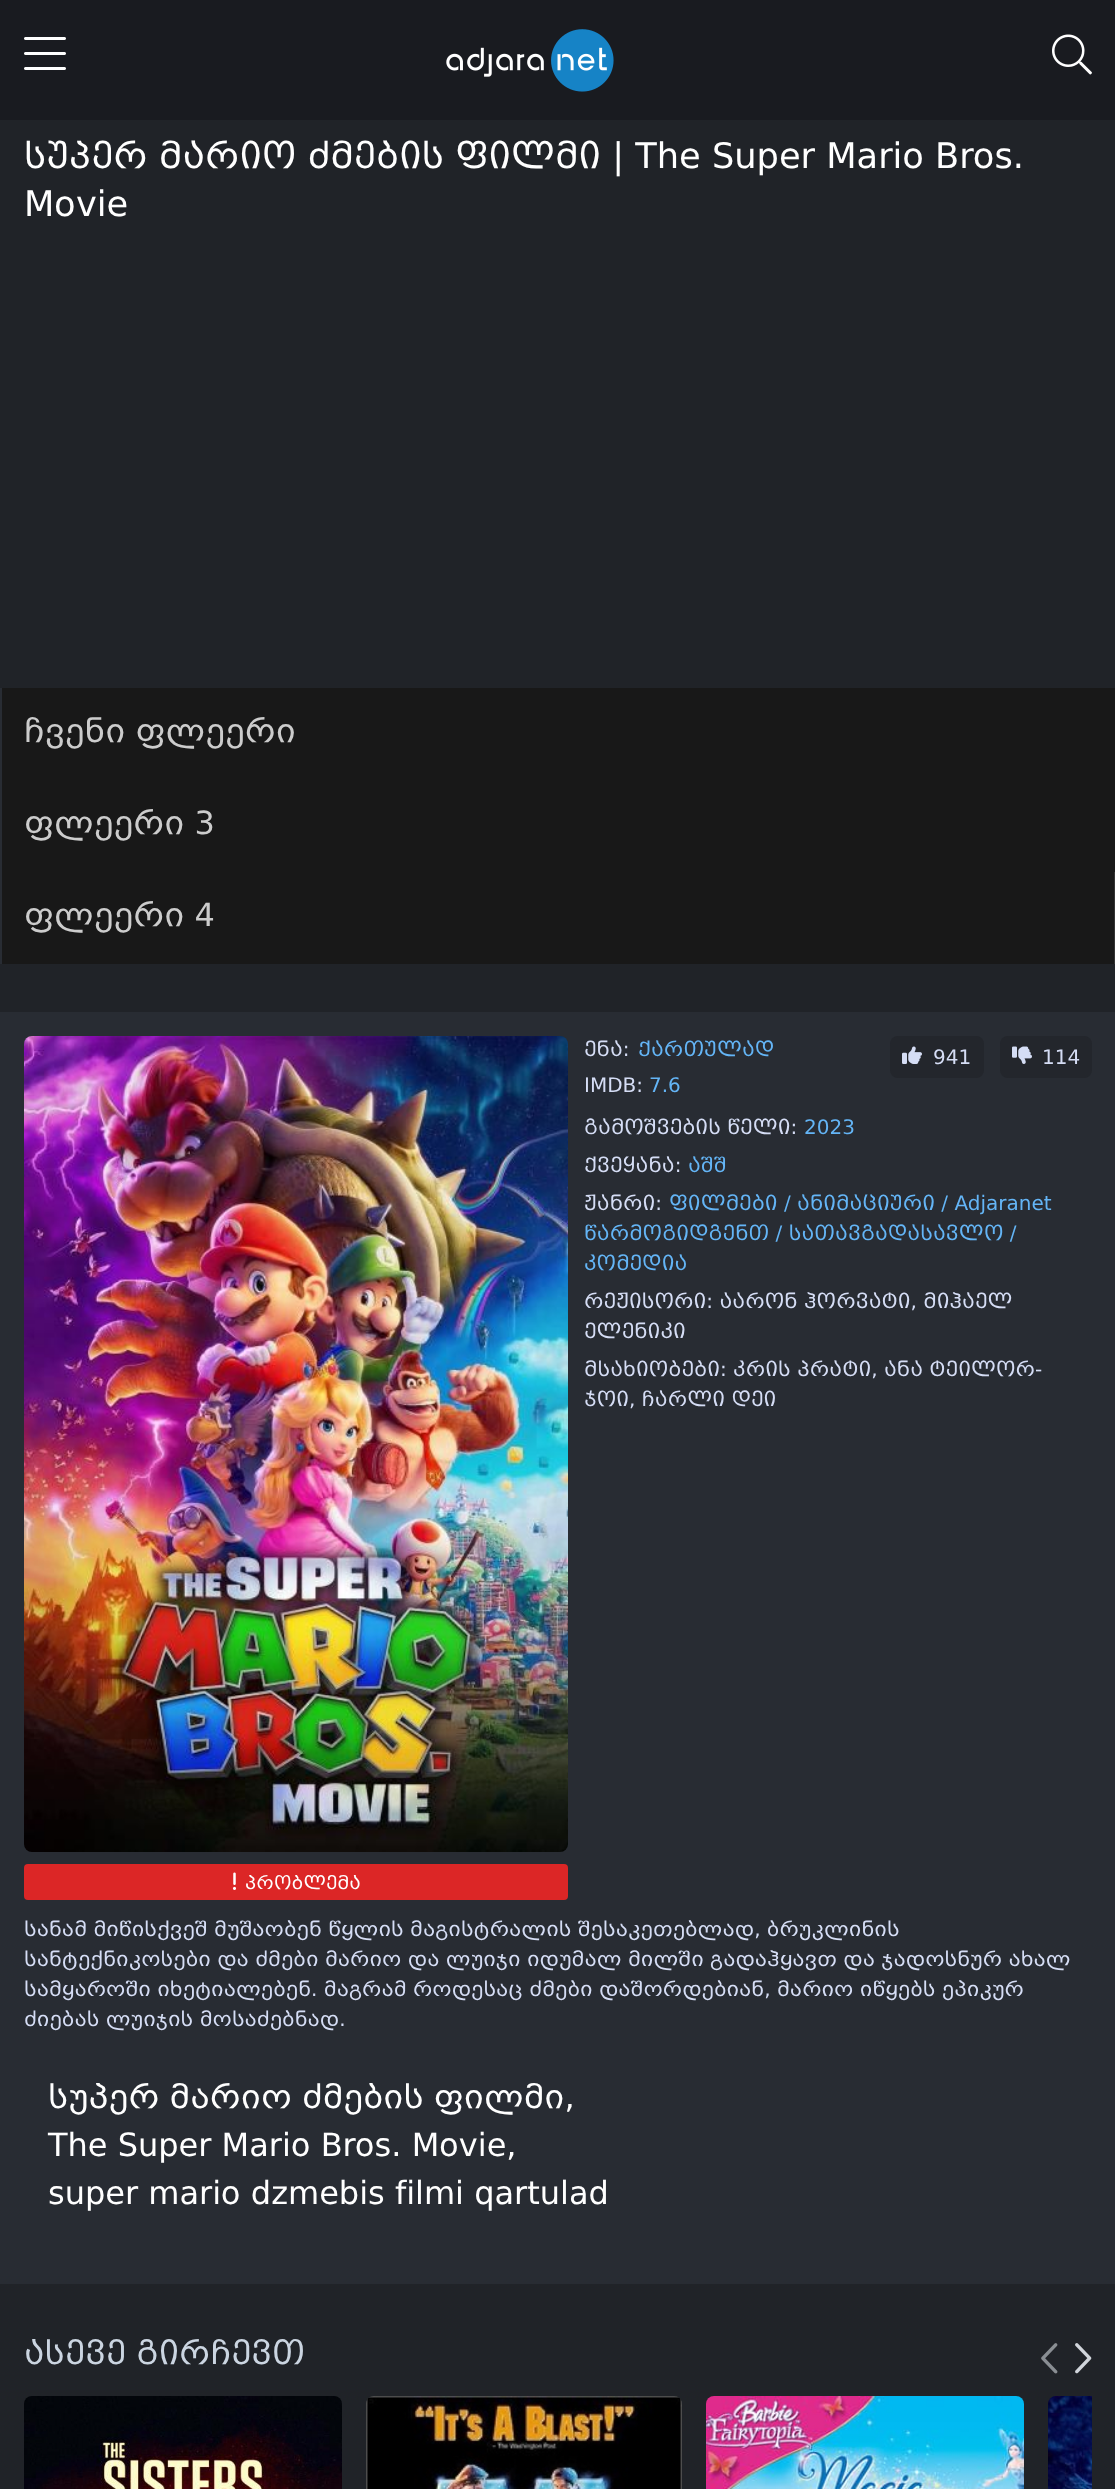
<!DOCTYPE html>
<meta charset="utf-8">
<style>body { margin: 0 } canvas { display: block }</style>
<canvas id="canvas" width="1115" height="2489"></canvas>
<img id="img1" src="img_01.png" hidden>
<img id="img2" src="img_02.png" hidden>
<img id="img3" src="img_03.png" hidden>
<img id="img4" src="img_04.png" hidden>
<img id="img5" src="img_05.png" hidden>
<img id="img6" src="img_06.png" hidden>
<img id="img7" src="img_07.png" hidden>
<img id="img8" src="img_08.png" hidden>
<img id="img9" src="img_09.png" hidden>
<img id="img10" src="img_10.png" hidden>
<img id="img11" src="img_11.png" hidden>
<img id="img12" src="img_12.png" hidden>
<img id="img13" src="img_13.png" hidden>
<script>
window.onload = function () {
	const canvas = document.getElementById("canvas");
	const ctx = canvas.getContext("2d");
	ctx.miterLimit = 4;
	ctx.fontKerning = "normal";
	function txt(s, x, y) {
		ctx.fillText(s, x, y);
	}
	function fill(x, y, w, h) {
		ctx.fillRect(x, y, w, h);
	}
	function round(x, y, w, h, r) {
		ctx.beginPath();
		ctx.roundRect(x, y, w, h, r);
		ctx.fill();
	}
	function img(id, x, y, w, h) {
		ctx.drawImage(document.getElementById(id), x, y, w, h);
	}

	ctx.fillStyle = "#202328";
	fill(0, 0, 1115, 2489);
	ctx.fillStyle = "#191B20";
	fill(0, 0, 1115, 120);
	img("img1", 24, 37, 42, 33);
	img("img2", 446, 29, 168, 63);
	img("img3", 1052, 34, 40, 41);
	ctx.fillStyle = "#181818";
	fill(2, 688, 1113, 184);
	ctx.fillStyle = "#282C33";
	fill(0, 688, 2, 276);
	ctx.fillStyle = "#181818";
	fill(2, 872, 1112, 92);
	ctx.fillStyle = "#333333";
	fill(1114, 872, 1, 92);
	ctx.fillStyle = "#282C33";
	fill(0, 1012, 1115, 1272);
	ctx.fillStyle = "#23262C";
	round(890, 1036, 94, 42, 8);
	img("img4", 902, 1046, 20, 18);
	round(1000, 1036, 92, 42, 8);
	img("img5", 1012, 1046, 20, 18);
	img("img6", 24, 1036, 544, 816);
	ctx.fillStyle = "#DC2626";
	round(24, 1864, 544, 36, 4);
	img("img7", 232, 1872, 4, 18);
	img("img8", 1041, 2343, 17, 31);
	img("img9", 1075, 2343, 17, 31);
	img("img10", 24, 2396, 318, 93);
	img("img11", 366, 2396, 316, 93);
	img("img12", 706, 2396, 318, 93);
	img("img13", 1048, 2396, 44, 93);
	ctx.font = "35.2px 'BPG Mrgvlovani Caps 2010'";
	ctx.fillStyle = "#FFFFFF";
	txt("სუპერ მარიო ძმების ფილმი | The Super Mario Bros.", 24, 168);
	txt("Movie", 24, 216);
	ctx.font = "32px 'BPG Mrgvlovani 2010'";
	ctx.fillStyle = "#CCCCCC";
	txt("ჩვენი ფლეერი", 24, 742);
	txt("ფლეერი 3", 24, 834);
	txt("ფლეერი 4", 24, 926);
	ctx.font = "20px 'BPG Mrgvlovani Caps 2010'";
	ctx.fillStyle = "#D5DDF5";
	txt("ენა:", 584, 1056);
	ctx.fillStyle = "#64B5F6";
	txt("ქართულად", 638, 1056);
	ctx.fillStyle = "#D5DDF5";
	txt("IMDB:", 584, 1092);
	ctx.fillStyle = "#64B5F6";
	txt("7.6", 649, 1092);
	ctx.fillStyle = "#D5DDF5";
	txt("გამოშვების წელი:", 584, 1134);
	ctx.fillStyle = "#64B5F6";
	txt("2023", 804, 1134);
	ctx.fillStyle = "#D5DDF5";
	txt("941", 933, 1064);
	txt("114", 1042, 1064);
	txt("ქვეყანა:", 584, 1172);
	ctx.fillStyle = "#64B5F6";
	txt("აშშ", 688, 1172);
	ctx.fillStyle = "#D5DDF5";
	txt("ჟანრი:", 584, 1210);
	ctx.fillStyle = "#64B5F6";
	txt("ფილმები / ანიმაციური / Adjaranet", 669, 1210);
	txt("წარმოგიდგენთ / სათავგადასავლო /", 584, 1240);
	txt("კომედია", 584, 1270);
	ctx.fillStyle = "#D5DDF5";
	txt("რეჟისორი: აარონ ჰორვატი, მიჰაელ", 584, 1308);
	txt("ელენიკი", 584, 1338);
	txt("მსახიობები: კრის პრატი, ანა ტეილორ-", 584, 1376);
	txt("ჯოი, ჩარლი დეი", 584, 1406);
	ctx.font = "18px 'BPG Mrgvlovani Caps 2010'";
	ctx.fillStyle = "#FFFFFF";
	txt("პრობლემა", 245, 1889);
	ctx.font = "20px 'BPG Mrgvlovani 2010'";
	ctx.fillStyle = "#D5DDF5";
	txt("სანამ მიწისქვეშ მუშაობენ წყლის მაგისტრალის შესაკეთებლად, ბრუკლინის", 24, 1936);
	txt("სანტექნიკოსები და ძმები მარიო და ლუიჯი იდუმალ მილში გადაჰყავთ და ჯადოსნურ ახალ", 24, 1966);
	txt("სამყაროში იხეტიალებენ. მაგრამ როდესაც ძმები დაშორდებიან, მარიო იწყებს ეპიკურ", 24, 1996);
	txt("ძიებას ლუიჯის მოსაძებნად.", 24, 2026);
	ctx.font = "32px 'BPG Mrgvlovani 2010'";
	ctx.fillStyle = "#FFFFFF";
	txt("სუპერ მარიო ძმების ფილმი,", 48, 2108);
	txt("The Super Mario Bros. Movie,", 48, 2156);
	txt("super mario dzmebis filmi qartulad", 48, 2204);
	ctx.font = "32px 'BPG Mrgvlovani Caps 2010'";
	ctx.fillStyle = "#CBD5E1";
	txt("ასევე გირჩევთ", 24, 2364);
};
</script>
